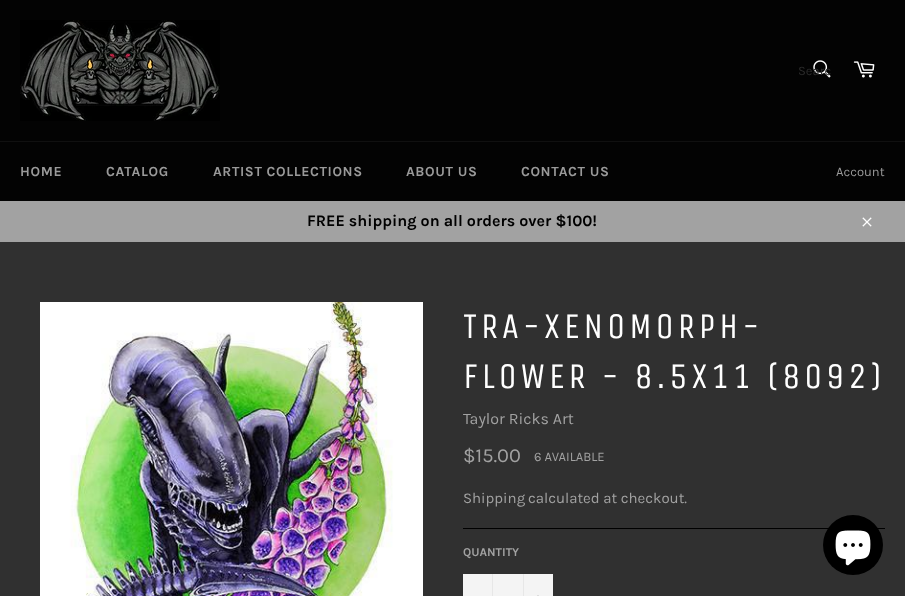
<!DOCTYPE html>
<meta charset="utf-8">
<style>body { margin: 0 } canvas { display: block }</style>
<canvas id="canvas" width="905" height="596"></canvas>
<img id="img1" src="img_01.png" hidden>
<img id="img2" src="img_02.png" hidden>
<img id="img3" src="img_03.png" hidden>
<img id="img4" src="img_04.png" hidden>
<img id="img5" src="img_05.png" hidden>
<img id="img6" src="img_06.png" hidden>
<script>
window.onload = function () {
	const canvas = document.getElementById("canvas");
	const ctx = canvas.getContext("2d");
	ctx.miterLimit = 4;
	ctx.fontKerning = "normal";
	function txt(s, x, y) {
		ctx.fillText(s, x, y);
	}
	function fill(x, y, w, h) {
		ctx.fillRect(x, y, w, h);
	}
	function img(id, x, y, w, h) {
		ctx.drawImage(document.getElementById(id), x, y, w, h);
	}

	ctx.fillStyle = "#030303";
	fill(0, 0, 905, 596);
	img("img1", 20, 20, 200, 101);
	img("img2", 813, 60, 18, 18);
	img("img3", 853, 61, 22, 17);
	ctx.fillStyle = "#101010";
	fill(0, 141, 905, 1);
	ctx.fillStyle = "#A2A2A2";
	fill(0, 201, 905, 41);
	img("img4", 862, 217, 10, 10);
	ctx.fillStyle = "#303030";
	fill(0, 242, 905, 354);
	img("img5", 40, 302, 383, 294);
	ctx.fillStyle = "#000000";
	fill(463, 528, 422, 1);
	ctx.fillStyle = "#F4F4F4";
	fill(463, 574, 90, 22);
	ctx.fillStyle = "#E7E7E7";
	fill(492, 574, 1, 22);
	fill(523, 574, 1, 22);
	ctx.fillStyle = "#DDDDDD";
	fill(537, 595, 2, 1);
	ctx.fillStyle = "#000000";
	ctx.beginPath();
	ctx.arc(853, 545, 30, 0, Math.PI * 2);
	ctx.fill();
	img("img6", 835, 530, 36, 36);
	ctx.font = "13px Karla";
	ctx.fillStyle = "#2B2B2B";
	txt("Searc", 798, 75);
	ctx.letterSpacing = "0.6px";
	ctx.font = "bold 14px Karla";
	ctx.fillStyle = "#9A9A9A";
	txt("HOME", 20, 176);
	txt("CATALOG", 106, 176);
	txt("ARTIST COLLECTIONS", 213, 176);
	txt("ABOUT US", 406, 176);
	txt("CONTACT US", 521, 176);
	ctx.letterSpacing = "0px";
	ctx.font = "13px Karla";
	txt("Account", 836, 176);
	ctx.font = "bold 16px Karla";
	ctx.fillStyle = "#000000";
	txt("FREE shipping on all orders over $100!", 307, 226);
	ctx.letterSpacing = "3.6px";
	ctx.font = "36px Unica One";
	ctx.fillStyle = "#FFFFFF";
	txt("TRA-XENOMORPH-", 463, 338);
	txt("FLOWER - 8.5X11 (8092)", 463, 388);
	ctx.letterSpacing = "0px";
	ctx.font = "16px Karla";
	ctx.fillStyle = "#A2A2A2";
	txt("Taylor Ricks Art", 463, 424);
	ctx.font = "20px Karla";
	txt("$15.00", 463, 462);
	ctx.font = "13px Karla";
	txt("6 AVAILABLE", 534, 461);
	ctx.font = "15px Karla";
	txt("Shipping", 463, 503);
	txt("calculated at checkout.", 528, 503);
	ctx.font = "bold 12px Karla";
	txt("QUANTITY", 463, 556);
};
</script>
